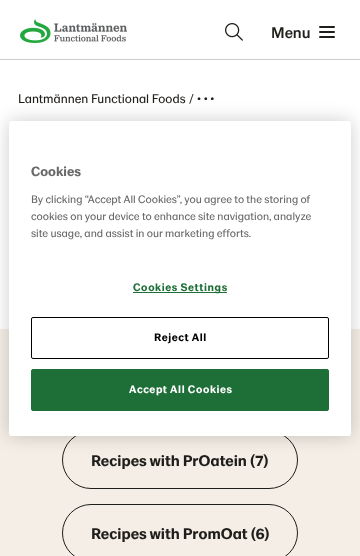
<!DOCTYPE html>
<meta charset="utf-8">
<style>body { margin: 0 } canvas { display: block }</style>
<canvas id="canvas" width="360" height="556"></canvas>
<img id="img1" src="img_01.png" hidden>
<img id="img2" src="img_02.png" hidden>
<script>
window.onload = function () {
	const canvas = document.getElementById("canvas");
	const ctx = canvas.getContext("2d");
	ctx.miterLimit = 4;
	ctx.fontKerning = "normal";
	function txt(s, x, y) {
		ctx.fillText(s, x, y);
	}
	function fill(x, y, w, h) {
		ctx.fillRect(x, y, w, h);
	}
	function round(x, y, w, h, r) {
		ctx.beginPath();
		ctx.roundRect(x, y, w, h, r);
		ctx.fill();
	}
	function img(id, x, y, w, h) {
		ctx.drawImage(document.getElementById(id), x, y, w, h);
	}

	ctx.fillStyle = "#FFFFFF";
	fill(0, 0, 360, 556);
	ctx.fillStyle = "#CCCCCC";
	fill(0, 59, 360, 1);
	img("img1", 20, 19, 107, 24);
	img("img2", 225, 23, 18, 18);
	ctx.fillStyle = "#201E1A";
	round(319, 26, 16, 2, 1);
	round(319, 31, 16, 2, 1);
	round(319, 36, 16, 2, 1);
	ctx.fillStyle = "#F4EEE6";
	fill(0, 329, 360, 227);
	ctx.beginPath();
	ctx.roundRect(62.5, 431.5, 235, 57, 28.5);
	ctx.strokeStyle = "#201E1A";
	ctx.stroke();
	ctx.beginPath();
	ctx.roundRect(62.5, 504.5, 235, 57, 28.5);
	ctx.stroke();
	ctx.fillStyle = "rgba(0, 0, 0, 0.2)";
	ctx.filter = "blur(9px)";
	ctx.beginPath();
	ctx.roundRect(9, 121, 342, 315, 2.5);
	ctx.fill();
	ctx.filter = "none";
	ctx.fillStyle = "#FFFFFF";
	round(9, 121, 342, 315, 2.5);
	ctx.fillStyle = "#1E6E37";
	fill(133, 292, 94, 1);
	ctx.beginPath();
	ctx.roundRect(31.5, 317.5, 297, 41, 1.5);
	ctx.strokeStyle = "#000000";
	ctx.stroke();
	ctx.beginPath();
	ctx.roundRect(31.5, 369.5, 297, 41, 1.5);
	ctx.fill();
	ctx.strokeStyle = "#1E6E37";
	ctx.stroke();
	ctx.font = "500 16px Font";
	ctx.fillStyle = "#201E1A";
	txt("Menu", 271, 38);
	ctx.font = "13px Font";
	txt("Lantmännen Functional Foods", 18, 103);
	txt("/", 189, 103);
	txt("• • •", 197, 103);
	ctx.font = "bold 16px Font";
	txt("Recipes with PrOatein (7)", 91, 466);
	txt("Recipes with PromOat (6)", 91, 539);
	ctx.font = "bold 14px Font";
	ctx.fillStyle = "#696969";
	txt("Cookies", 31, 176);
	ctx.font = "11.4px Font";
	txt("By clicking “Accept All Cookies”, you agree to the storing of", 31, 203);
	txt("cookies on your device to enhance site navigation, analyze", 31, 220);
	txt("site usage, and assist in our marketing efforts.", 31, 237);
	ctx.letterSpacing = "0.6px";
	ctx.font = "bold 11.4px Font";
	ctx.fillStyle = "#1E6E37";
	txt("Cookies Settings", 133, 291);
	ctx.fillStyle = "#000000";
	txt("Reject All", 154, 341);
	ctx.fillStyle = "#FFFFFF";
	txt("Accept All Cookies", 129, 393);
};
</script>
